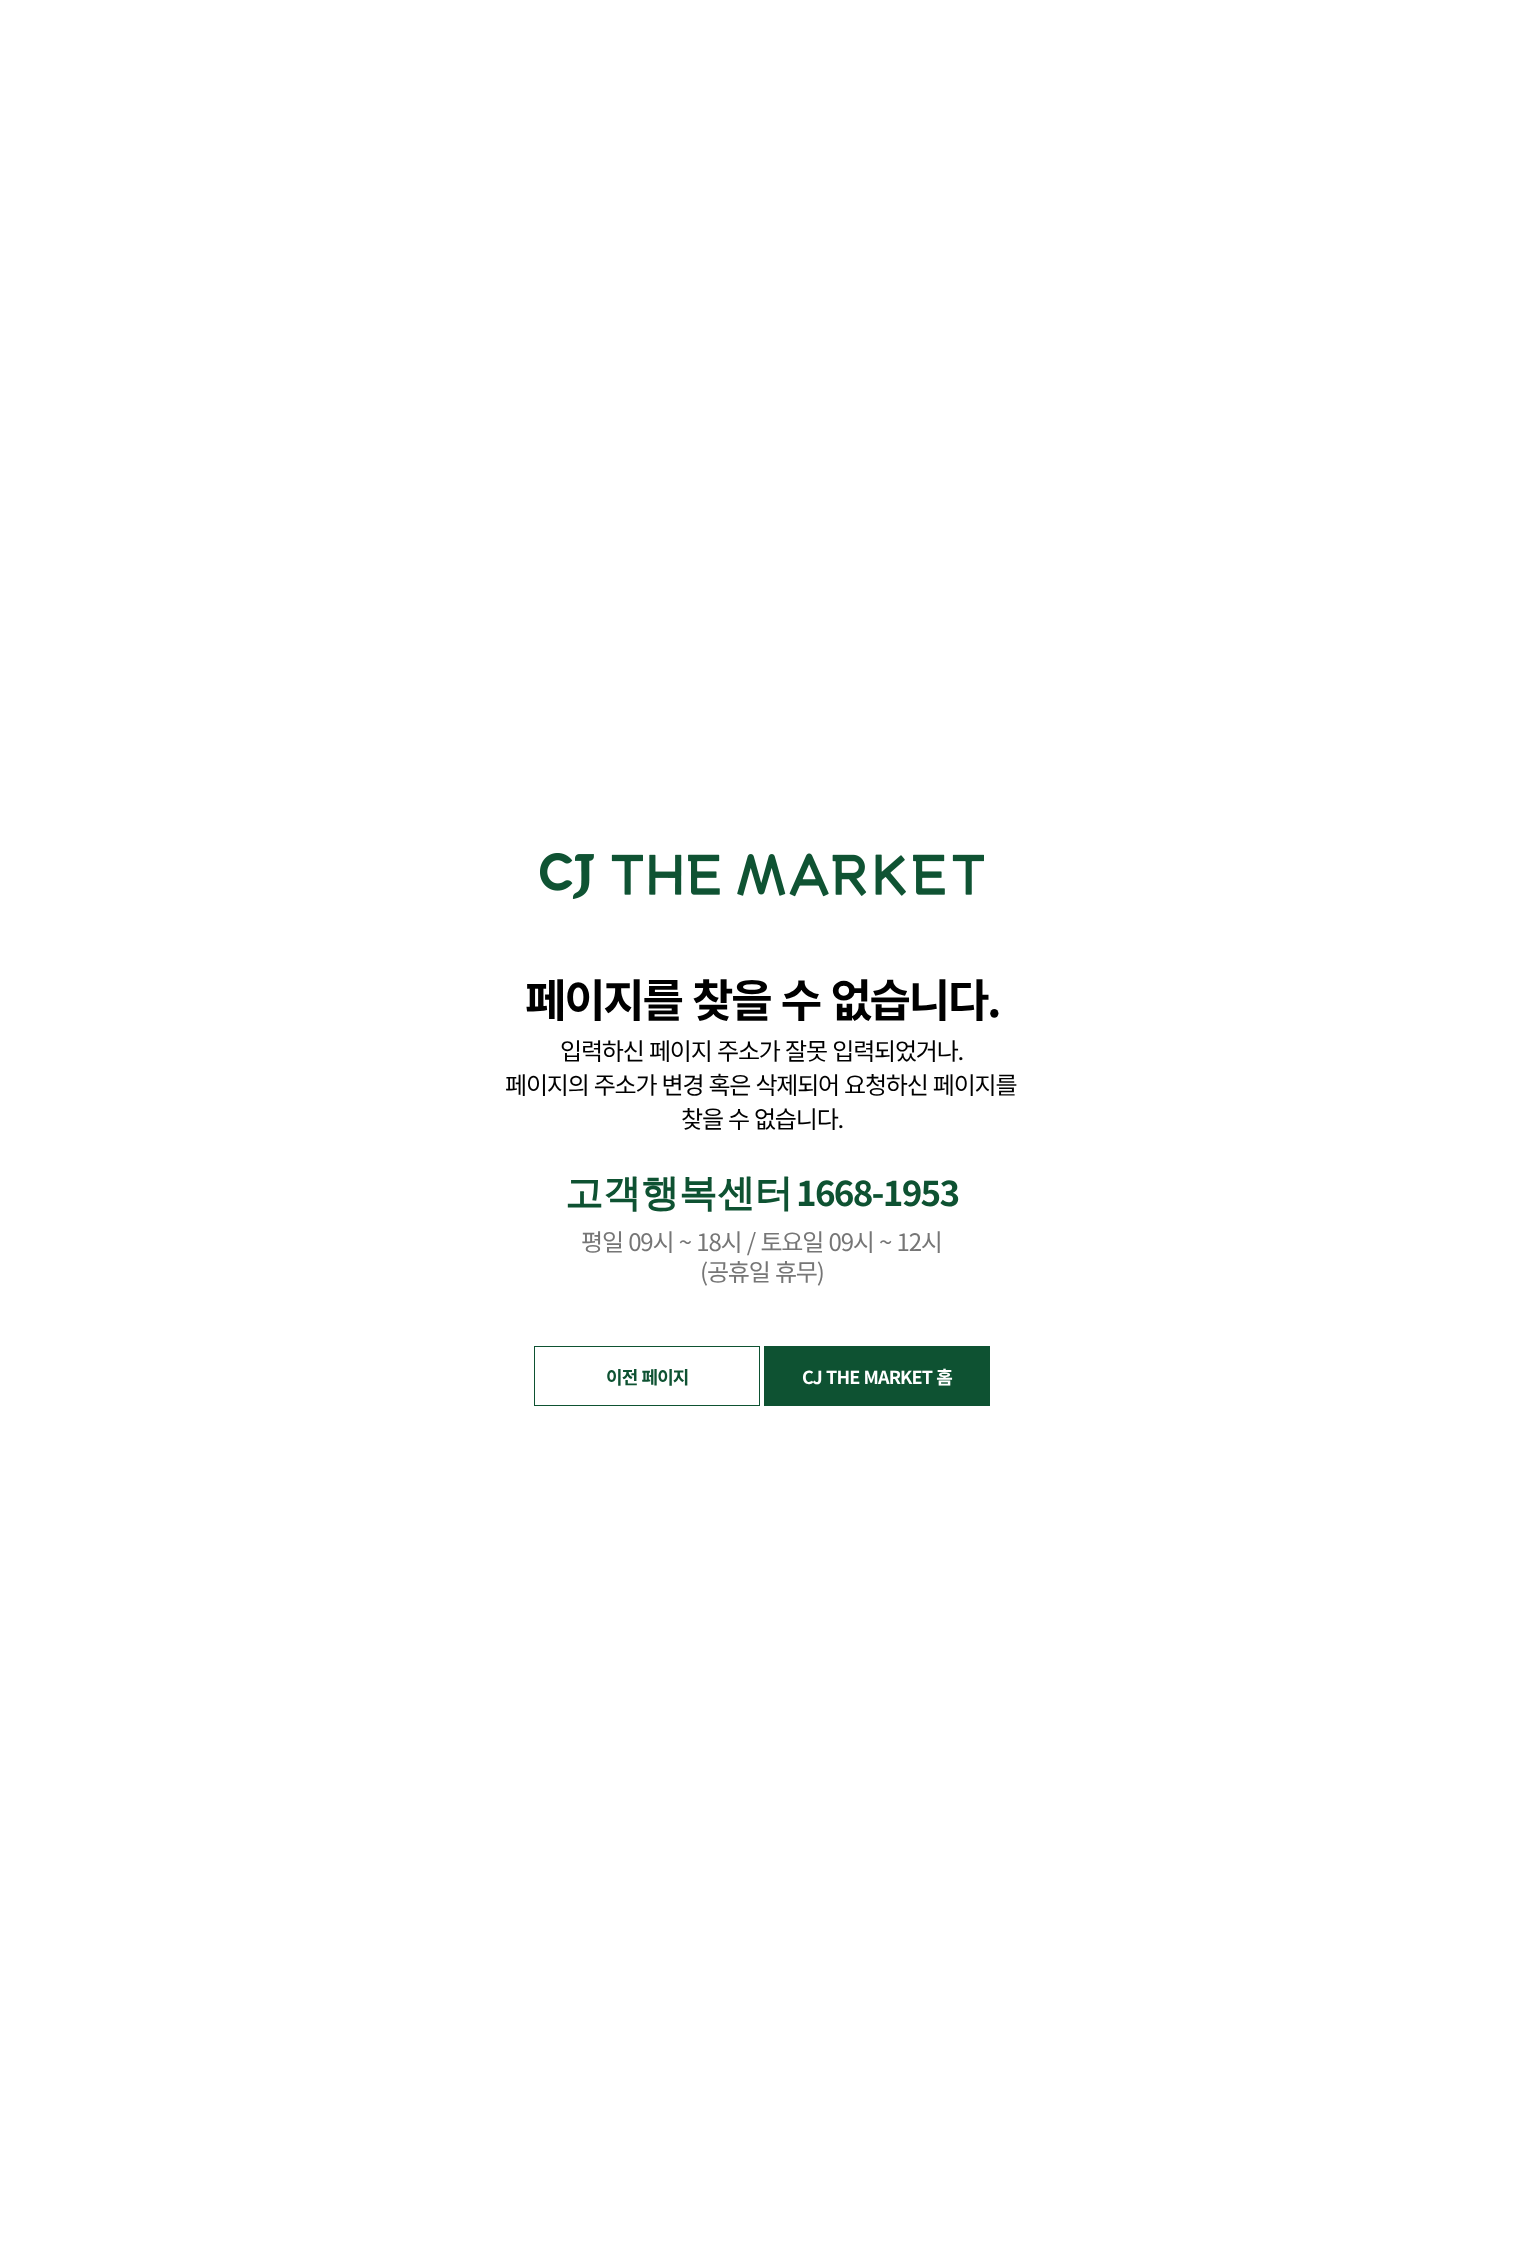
<!DOCTYPE html>
<meta charset="utf-8">
<style>body { margin: 0 } canvas { display: block }</style>
<canvas id="canvas" width="1524" height="2259"></canvas>
<img id="img1" src="img_01.png" hidden>
<script>
window.onload = function () {
	const canvas = document.getElementById("canvas");
	const ctx = canvas.getContext("2d");
	ctx.miterLimit = 4;
	ctx.fontKerning = "normal";
	function txt(s, x, y) {
		ctx.fillText(s, x, y);
	}
	function fill(x, y, w, h) {
		ctx.fillRect(x, y, w, h);
	}
	function img(id, x, y, w, h) {
		ctx.drawImage(document.getElementById(id), x, y, w, h);
	}

	ctx.fillStyle = "#FFFFFF";
	fill(0, 0, 1524, 2259);
	img("img1", 540, 853, 444, 46);
	ctx.strokeStyle = "#0E5232";
	ctx.strokeRect(534.5, 1346.5, 225, 59);
	ctx.fillStyle = "#0E5232";
	fill(764, 1346, 226, 60);
	ctx.letterSpacing = "-2.25px";
	ctx.wordSpacing = "2.5px";
	ctx.font = "bold 45px Noto Sans KR";
	ctx.fillStyle = "#000000";
	txt("페이지를 찾을 수 없습니다.", 525, 1017);
	ctx.letterSpacing = "-1.2px";
	ctx.wordSpacing = "1.25px";
	ctx.font = "24px Noto Sans KR";
	txt("입력하신 페이지 주소가 잘못 입력되었거나.", 560, 1060);
	ctx.wordSpacing = "1px";
	txt("페이지의 주소가 변경 혹은 삭제되어 요청하신 페이지를", 505, 1094);
	txt("찾을 수 없습니다.", 681, 1128);
	ctx.letterSpacing = "0px";
	ctx.wordSpacing = "0px";
	ctx.font = "bold 38px WenQuanYi Zen Hei";
	ctx.fillStyle = "#0E5232";
	txt("고객행복센터", 565, 1206);
	ctx.letterSpacing = "-1.75px";
	ctx.font = "bold 35px Noto Sans KR";
	txt("1668-1953", 796, 1206);
	ctx.letterSpacing = "-1.2px";
	ctx.wordSpacing = "1.25px";
	ctx.font = "24px Noto Sans KR";
	ctx.fillStyle = "#767676";
	txt("평일 09시 ~ 18시 / 토요일 09시 ~ 12시", 581, 1251);
	txt("(공휴일 휴무)", 700, 1281);
	ctx.letterSpacing = "-0.9px";
	ctx.wordSpacing = "1px";
	ctx.font = "bold 18px Noto Sans KR";
	ctx.fillStyle = "#0E5232";
	txt("이전 페이지", 606, 1384);
	ctx.fillStyle = "#FFFFFF";
	txt("CJ THE MARKET 홈", 802, 1384);
};
</script>
